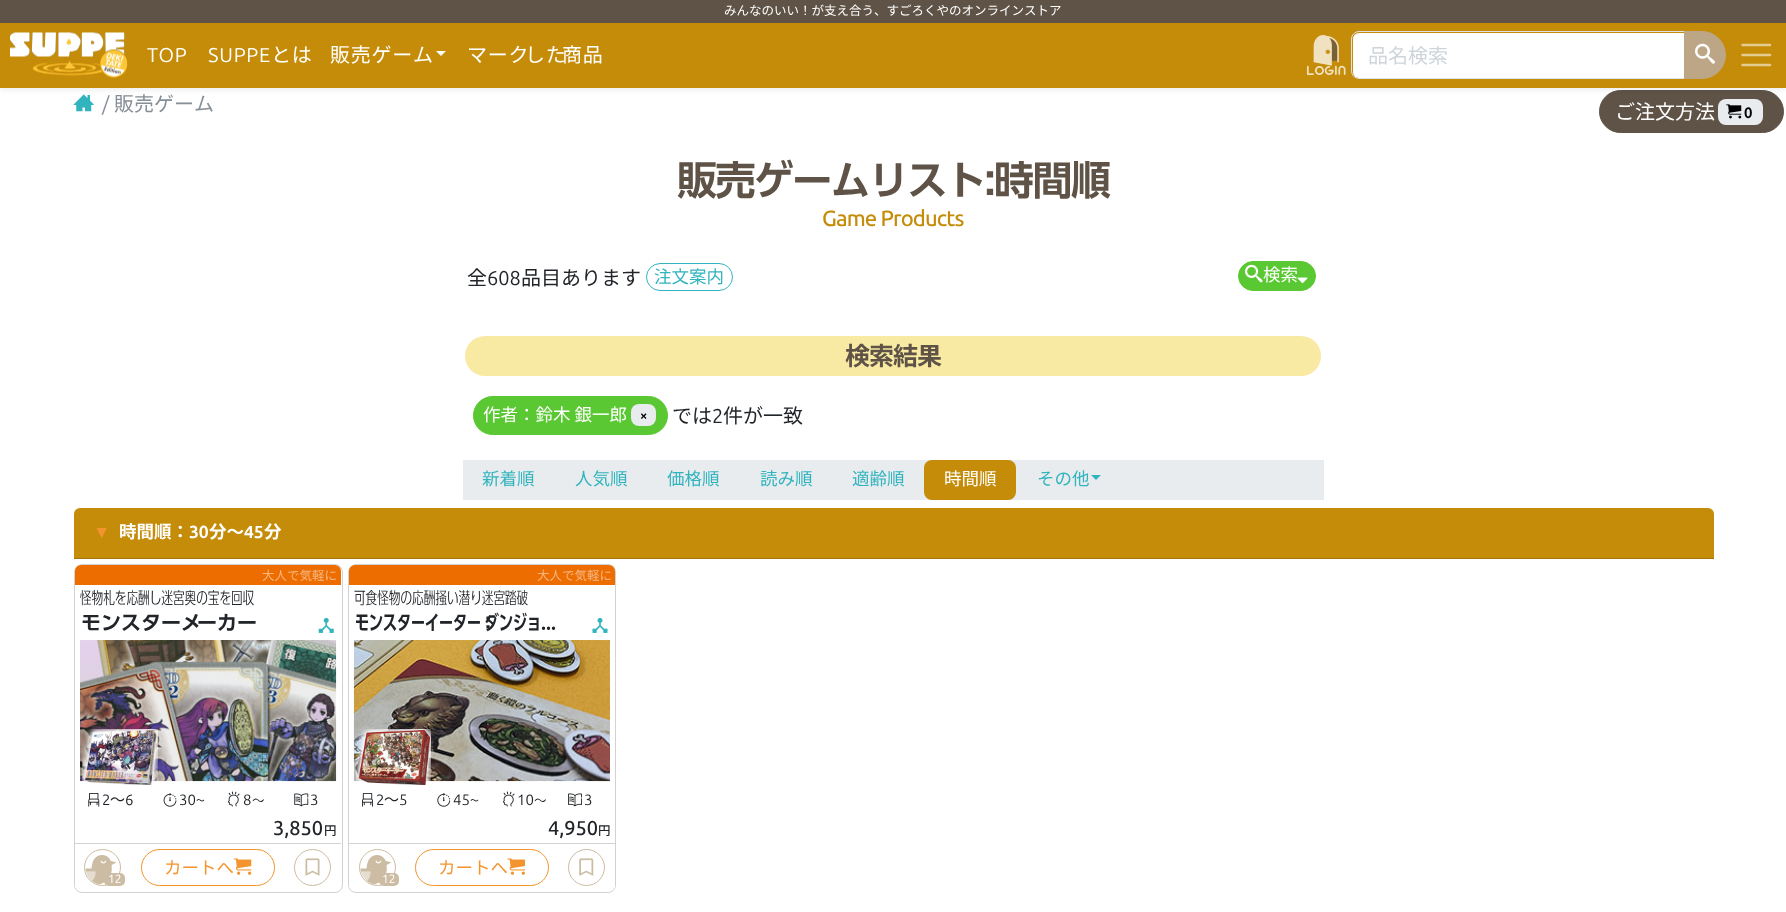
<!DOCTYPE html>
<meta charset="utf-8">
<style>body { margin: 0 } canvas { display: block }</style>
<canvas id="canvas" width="1786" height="912"></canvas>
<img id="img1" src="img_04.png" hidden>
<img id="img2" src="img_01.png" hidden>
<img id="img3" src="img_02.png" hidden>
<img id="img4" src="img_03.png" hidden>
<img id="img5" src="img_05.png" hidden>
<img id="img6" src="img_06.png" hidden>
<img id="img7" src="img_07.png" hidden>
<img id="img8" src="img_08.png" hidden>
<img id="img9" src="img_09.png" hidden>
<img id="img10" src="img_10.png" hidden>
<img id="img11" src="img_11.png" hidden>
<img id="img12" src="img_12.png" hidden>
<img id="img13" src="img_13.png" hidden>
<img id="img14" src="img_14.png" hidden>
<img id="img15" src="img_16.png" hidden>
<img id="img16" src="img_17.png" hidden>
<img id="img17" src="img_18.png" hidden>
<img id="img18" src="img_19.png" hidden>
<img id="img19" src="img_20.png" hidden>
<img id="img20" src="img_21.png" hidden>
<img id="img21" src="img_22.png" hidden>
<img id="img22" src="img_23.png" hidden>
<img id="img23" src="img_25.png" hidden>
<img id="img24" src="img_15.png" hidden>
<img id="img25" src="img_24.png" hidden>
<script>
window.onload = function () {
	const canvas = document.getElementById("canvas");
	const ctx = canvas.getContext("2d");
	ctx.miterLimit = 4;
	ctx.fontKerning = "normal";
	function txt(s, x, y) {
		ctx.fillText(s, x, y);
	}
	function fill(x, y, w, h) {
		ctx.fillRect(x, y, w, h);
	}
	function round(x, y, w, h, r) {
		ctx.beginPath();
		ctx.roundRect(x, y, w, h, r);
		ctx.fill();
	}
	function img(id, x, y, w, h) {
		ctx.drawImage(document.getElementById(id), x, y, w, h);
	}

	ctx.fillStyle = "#FFFFFF";
	fill(0, 0, 1786, 912);
	img("img1", 73, 94, 21, 18);
	ctx.fillStyle = "#5E5346";
	ctx.beginPath();
	ctx.roundRect(1599.5, 90.5, 184, 42, 21);
	ctx.fill();
	ctx.strokeStyle = "#5E5346";
	ctx.stroke();
	ctx.fillStyle = "rgba(0, 0, 0, 0.07)";
	ctx.filter = "blur(2.5px)";
	ctx.beginPath();
	ctx.rect(0, 3, 1786, 87);
	ctx.fill();
	ctx.filter = "none";
	ctx.fillStyle = "#5E5346";
	fill(0, 0, 1786, 23);
	ctx.fillStyle = "#C48C08";
	fill(0, 23, 1786, 65);
	img("img2", 10, 32, 118, 46);
	ctx.fillStyle = "#FFFFFF";
	ctx.beginPath();
	ctx.moveTo(436, 51);
	ctx.lineTo(446, 51);
	ctx.lineTo(441, 56);
	ctx.closePath();
	ctx.fill();
	img("img3", 1306, 35, 40, 40);
	ctx.beginPath();
	ctx.roundRect(1353, 33, 331, 45, [6, 0, 0, 6]);
	ctx.fill();
	ctx.beginPath();
	ctx.roundRect(1351.5, 31.5, 333, 47, [7.5, 0, 0, 7.5]);
	ctx.strokeStyle = "#DEE2E6";
	ctx.stroke();
	ctx.fillStyle = "#BCA685";
	ctx.beginPath();
	ctx.roundRect(1684.5, 31.5, 41, 47, [0, 23.5, 23.5, 0]);
	ctx.fill();
	ctx.strokeStyle = "#BCA685";
	ctx.stroke();
	img("img4", 1695, 43, 20, 21);
	ctx.beginPath();
	ctx.moveTo(1742.5, 45);
	ctx.lineTo(1770, 45);
	ctx.moveTo(1742.5, 55);
	ctx.lineTo(1770, 55);
	ctx.moveTo(1742.5, 65);
	ctx.lineTo(1770, 65);
	ctx.strokeStyle = "#E4CB90";
	ctx.lineWidth = 2.5;
	ctx.lineCap = "round";
	ctx.stroke();
	ctx.fillStyle = "#E9ECEF";
	round(1718, 99, 45, 26, 8);
	img("img5", 1726, 104, 16, 15);
	ctx.beginPath();
	ctx.roundRect(646.5, 263.5, 86, 27, 13.5);
	ctx.strokeStyle = "#32B4BE";
	ctx.lineWidth = 1;
	ctx.stroke();
	ctx.fillStyle = "#5AC832";
	ctx.beginPath();
	ctx.roundRect(1238.5, 261.5, 77, 29, 14.5);
	ctx.fill();
	ctx.strokeStyle = "#5AC832";
	ctx.stroke();
	img("img6", 1245, 264, 18, 19);
	img("img7", 1297, 277, 11, 7);
	ctx.fillStyle = "#F8EAA3";
	round(465, 336, 856, 40, 20);
	ctx.fillStyle = "#5AC832";
	ctx.beginPath();
	ctx.roundRect(473.5, 396.5, 194, 38, 19);
	ctx.fill();
	ctx.stroke();
	ctx.fillStyle = "#E9ECEF";
	round(631, 404, 25, 22, 8);
	fill(463, 460, 861, 40);
	ctx.fillStyle = "#C48C08";
	round(924, 460, 92, 40, 8);
	ctx.fillStyle = "#32B4BE";
	ctx.beginPath();
	ctx.moveTo(1091, 475);
	ctx.lineTo(1101, 475);
	ctx.lineTo(1096, 480);
	ctx.closePath();
	ctx.fill();
	ctx.fillStyle = "#C48C08";
	ctx.beginPath();
	ctx.roundRect(74, 508, 1640, 51, [6, 6, 0, 0]);
	ctx.fill();
	ctx.fillStyle = "#A27307";
	fill(74, 558, 1640, 1);
	ctx.beginPath();
	ctx.roundRect(74.5, 564.5, 268, 328, 7.5);
	ctx.strokeStyle = "#D2D2D2";
	ctx.stroke();
	ctx.fillStyle = "#ED6D00";
	ctx.beginPath();
	ctx.roundRect(75, 565, 266, 20, [6, 6, 0, 0]);
	ctx.fill();
	img("img8", 318, 617, 16, 16);
	img("img9", 80, 640, 257, 142);
	img("img10", 82, 729, 76, 56);
	img("img11", 88, 793, 12, 14);
	img("img12", 163, 793, 14, 14);
	img("img13", 228, 791, 12, 16);
	img("img14", 294, 793, 15, 14);
	ctx.fillStyle = "#FFFFFF";
	ctx.beginPath();
	ctx.roundRect(75, 843, 266, 48, [0, 0, 6, 6]);
	ctx.fill();
	ctx.fillStyle = "#D2D2D2";
	fill(75, 843, 266, 1);
	ctx.beginPath();
	ctx.roundRect(141.5, 849.5, 133, 36, 18);
	ctx.strokeStyle = "#F4942E";
	ctx.stroke();
	ctx.beginPath();
	ctx.arc(312.5, 867.5, 18, 0, Math.PI * 2);
	ctx.strokeStyle = "#CDBCA4";
	ctx.stroke();
	img("img15", 305, 858, 15, 18);
	ctx.beginPath();
	ctx.arc(102.5, 867.5, 18, 0, Math.PI * 2);
	ctx.stroke();
	img("img16", 85, 855, 32, 30);
	ctx.fillStyle = "#CDBCA4";
	round(104, 873, 21, 13, 5);
	ctx.beginPath();
	ctx.roundRect(348.5, 564.5, 267, 328, 7.5);
	ctx.strokeStyle = "#D2D2D2";
	ctx.stroke();
	ctx.fillStyle = "#ED6D00";
	ctx.beginPath();
	ctx.roundRect(349, 565, 266, 20, [6, 6, 0, 0]);
	ctx.fill();
	img("img17", 592, 618, 16, 15);
	img("img18", 353, 640, 257, 142);
	img("img19", 356, 729, 75, 56);
	img("img20", 362, 793, 11, 14);
	img("img21", 437, 793, 14, 14);
	img("img13", 503, 791, 12, 16);
	img("img22", 568, 793, 14, 14);
	ctx.fillStyle = "#FFFFFF";
	ctx.beginPath();
	ctx.roundRect(349, 843, 266, 48, [0, 0, 6, 6]);
	ctx.fill();
	ctx.fillStyle = "#D2D2D2";
	fill(349, 843, 266, 1);
	ctx.beginPath();
	ctx.roundRect(415.5, 849.5, 133, 36, 18);
	ctx.strokeStyle = "#F4942E";
	ctx.stroke();
	ctx.beginPath();
	ctx.arc(586.5, 867.5, 18, 0, Math.PI * 2);
	ctx.strokeStyle = "#CDBCA4";
	ctx.stroke();
	img("img23", 579, 858, 15, 18);
	ctx.beginPath();
	ctx.arc(377.5, 867.5, 18, 0, Math.PI * 2);
	ctx.stroke();
	img("img16", 360, 855, 32, 30);
	ctx.fillStyle = "#CDBCA4";
	round(379, 873, 20, 13, 5);
	ctx.font = "12.5px Noto Sans JP";
	ctx.fillStyle = "#FFFFFF";
	txt("みんなのいい！が支え合う、すごろくやのオンラインストア", 724, 15);
	ctx.letterSpacing = "0.75px";
	ctx.font = "20px Ubuntu";
	txt("TOP", 147, 62);
	txt("SUPPE", 208, 62);
	ctx.font = "20px Noto Sans JP";
	txt("とは", 271, 62);
	txt("販売ゲーム", 330, 62);
	txt("マーク", 467, 62);
	txt("した", 525, 62);
	txt("商品", 562, 62);
	ctx.letterSpacing = "0px";
	ctx.fillStyle = "#CED4DA";
	txt("品名検索", 1368, 63);
	ctx.font = "20px Ubuntu";
	ctx.fillStyle = "#868E96";
	txt("/", 102, 111);
	ctx.font = "20px Noto Sans JP";
	txt("販売ゲーム", 114, 111);
	ctx.fillStyle = "#FFFFFF";
	txt("ご注文方法", 1615, 119);
	ctx.font = "bold 15px Ubuntu";
	ctx.fillStyle = "#000000";
	txt("0", 1744, 118);
	ctx.letterSpacing = "-1.6px";
	ctx.font = "600 40px 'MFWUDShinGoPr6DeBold'";
	ctx.fillStyle = "#5E5346";
	txt("販売ゲームリスト:時間順", 677, 195);
	ctx.letterSpacing = "-0.9px";
	ctx.font = "500 22px Ubuntu";
	ctx.fillStyle = "#C48C08";
	txt("Game Products", 822, 226);
	ctx.letterSpacing = "0px";
	ctx.font = "20px Noto Sans JP";
	ctx.fillStyle = "#212529";
	txt("全", 467, 285);
	ctx.font = "20px Ubuntu";
	txt("608", 487, 285);
	ctx.font = "20px Noto Sans JP";
	txt("品目あります", 521, 285);
	ctx.font = "17.5px Noto Sans JP";
	ctx.fillStyle = "#32B4BE";
	txt("注文案内", 654, 283);
	ctx.fillStyle = "#FFFFFF";
	txt("検索", 1263, 281);
	ctx.letterSpacing = "-1px";
	ctx.font = "bold 25px Noto Sans JP";
	ctx.fillStyle = "#5E5346";
	txt("検索結果", 845, 365);
	ctx.letterSpacing = "0px";
	ctx.font = "17.5px Noto Sans JP";
	ctx.fillStyle = "#FFFFFF";
	txt("作者：鈴木 銀一郎", 483, 421);
	ctx.font = "bold 13px Ubuntu";
	ctx.fillStyle = "#000000";
	txt("×", 640, 420);
	ctx.font = "20px Noto Sans JP";
	ctx.fillStyle = "#212529";
	txt("では", 672, 423);
	ctx.font = "20px Ubuntu";
	txt("2", 712, 423);
	ctx.font = "20px Noto Sans JP";
	txt("件が一致", 723, 423);
	ctx.font = "17.5px Noto Sans JP";
	ctx.fillStyle = "#32B4BE";
	txt("新着順", 482, 485);
	txt("人気順", 575, 485);
	txt("価格順", 667, 485);
	txt("読み順", 760, 485);
	txt("適齢順", 852, 485);
	ctx.fillStyle = "#FFFFFF";
	txt("時間順", 944, 485);
	ctx.fillStyle = "#32B4BE";
	txt("その他", 1037, 485);
	ctx.font = "bold 17.5px Liberation Sans";
	ctx.fillStyle = "#F4942E";
	txt("▼", 93, 538);
	ctx.font = "bold 17.5px Noto Sans JP";
	ctx.fillStyle = "#FFFFFF";
	txt("時間順：", 119, 538);
	ctx.font = "bold 17.5px Ubuntu";
	txt("30", 189, 538);
	ctx.font = "bold 17.5px Noto Sans JP";
	txt("分〜", 209, 538);
	ctx.font = "bold 17.5px Ubuntu";
	txt("45", 244, 538);
	ctx.font = "bold 17.5px Noto Sans JP";
	txt("分", 264, 538);
	ctx.font = "12.5px Noto Sans JP";
	ctx.fillStyle = "#F6B680";
	txt("大人で気軽に", 262, 580);
	ctx.font = "300 16.6px 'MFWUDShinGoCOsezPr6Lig'";
	ctx.fillStyle = "#212529";
	txt("怪物札を応酬し迷宮奥の宝を回収", 80, 604);
	ctx.font = "600 20px 'MFWUDShinGoPr6DeBold'";
	txt("モンスターメ", 81, 630);
	txt("ーカー", 197, 630);
	ctx.font = "15px Ubuntu";
	txt("2", 102, 805);
	ctx.font = "15px Noto Sans JP";
	txt("〜", 110, 805);
	ctx.font = "15px Ubuntu";
	txt("6", 125, 805);
	txt("30", 179, 805);
	ctx.font = "12.5px 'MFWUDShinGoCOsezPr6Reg'";
	txt("〜", 196, 805);
	ctx.font = "15px Ubuntu";
	txt("8", 243, 805);
	ctx.font = "12.5px Noto Sans JP";
	txt("〜", 252, 805);
	ctx.font = "15px Ubuntu";
	txt("3", 310, 805);
	ctx.font = "500 20px Ubuntu";
	txt("3,850", 273, 835);
	ctx.font = "500 12.5px Noto Sans JP";
	txt("円", 324, 835);
	ctx.font = "17.5px Noto Sans JP";
	ctx.fillStyle = "#F4942E";
	txt("カートへ", 164, 874);
	img("img24", 233, 858, 19, 17);
	ctx.font = "12px Ubuntu";
	ctx.fillStyle = "#FFFFFF";
	txt("12", 108, 883);
	ctx.font = "12.5px Noto Sans JP";
	ctx.fillStyle = "#F6B680";
	txt("大人で気軽に", 537, 580);
	ctx.font = "300 16.6px 'MFWUDShinGoCOsezPr6Lig'";
	ctx.fillStyle = "#212529";
	txt("可食怪物の応酬掻い潜り迷宮踏破", 354, 604);
	ctx.font = "600 20px 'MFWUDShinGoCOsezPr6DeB'";
	txt("モンスターイーター：", 355, 630);
	txt("ダンジョ...", 485, 630);
	ctx.font = "15px Ubuntu";
	txt("2", 376, 805);
	ctx.font = "15px Noto Sans JP";
	txt("〜", 384, 805);
	ctx.font = "15px Ubuntu";
	txt("5", 399, 805);
	txt("45", 453, 805);
	ctx.font = "12.5px 'MFWUDShinGoCOsezPr6Reg'";
	txt("〜", 470, 805);
	ctx.font = "15px Ubuntu";
	txt("10", 517, 805);
	ctx.font = "12.5px Noto Sans JP";
	txt("〜", 534, 805);
	ctx.font = "15px Ubuntu";
	txt("3", 584, 805);
	ctx.font = "500 20px Ubuntu";
	txt("4,950", 548, 835);
	ctx.font = "500 12.5px Noto Sans JP";
	txt("円", 598, 835);
	ctx.font = "17.5px Noto Sans JP";
	ctx.fillStyle = "#F4942E";
	txt("カートへ", 438, 874);
	img("img25", 507, 858, 18, 17);
	ctx.font = "12px Ubuntu";
	ctx.fillStyle = "#FFFFFF";
	txt("12", 382, 883);
};
</script>
